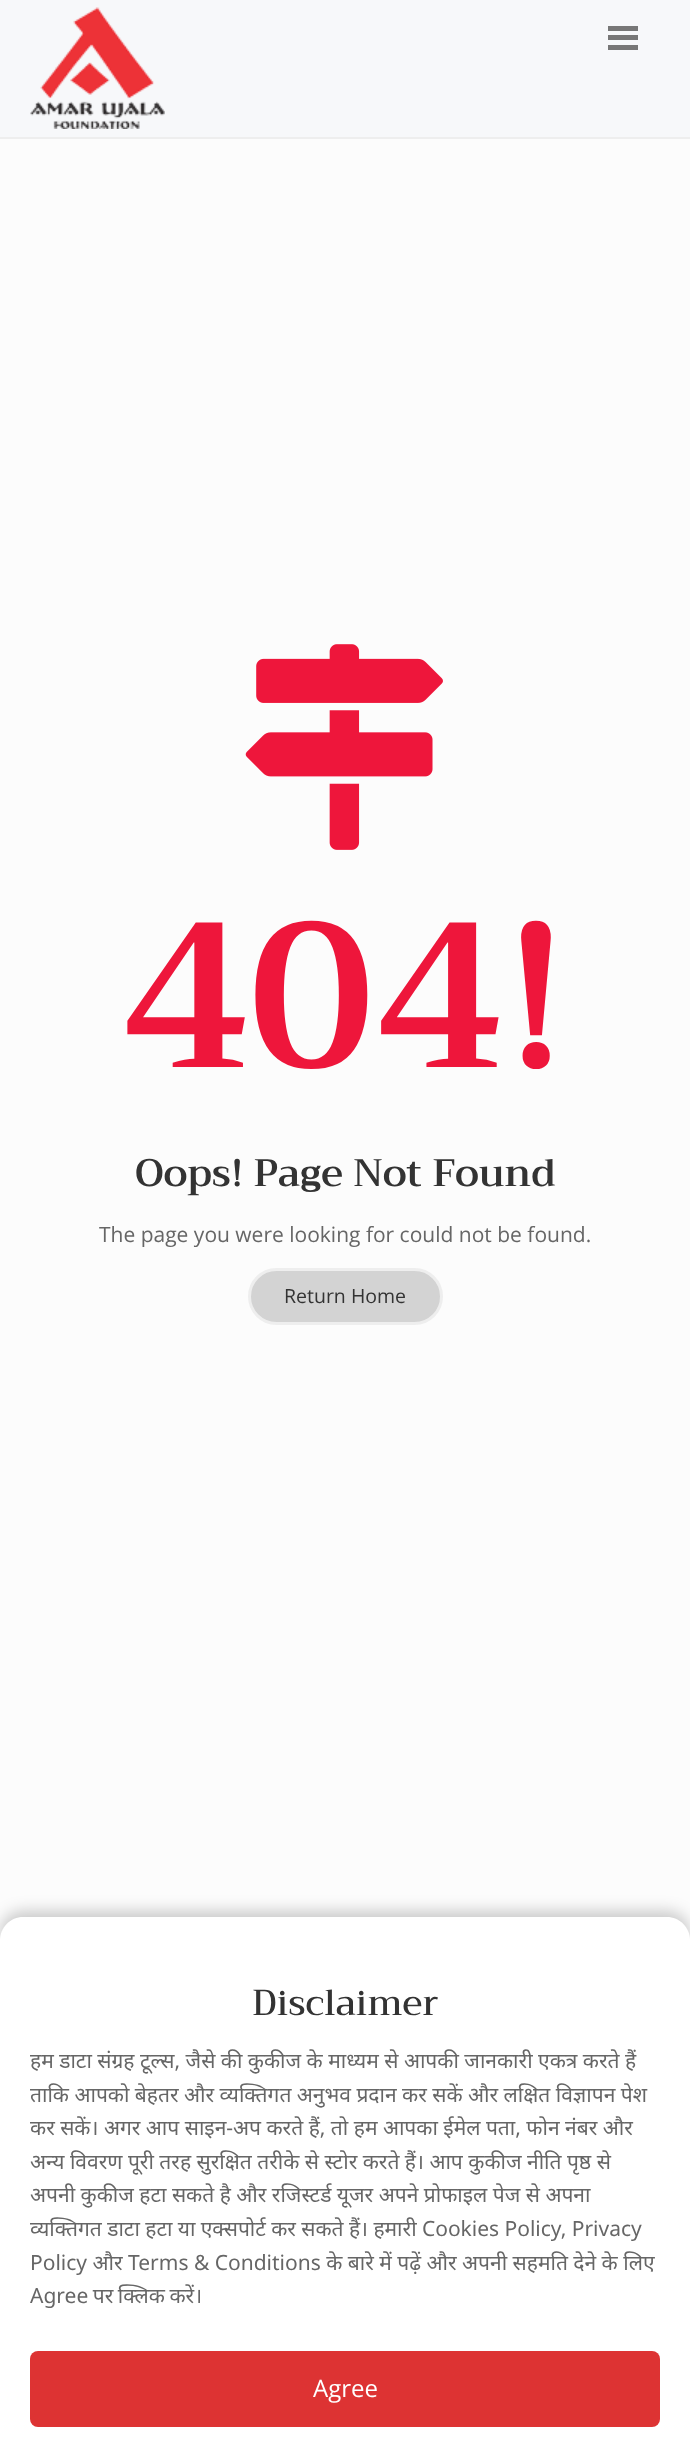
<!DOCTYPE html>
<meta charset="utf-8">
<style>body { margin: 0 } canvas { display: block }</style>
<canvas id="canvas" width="690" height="2456"></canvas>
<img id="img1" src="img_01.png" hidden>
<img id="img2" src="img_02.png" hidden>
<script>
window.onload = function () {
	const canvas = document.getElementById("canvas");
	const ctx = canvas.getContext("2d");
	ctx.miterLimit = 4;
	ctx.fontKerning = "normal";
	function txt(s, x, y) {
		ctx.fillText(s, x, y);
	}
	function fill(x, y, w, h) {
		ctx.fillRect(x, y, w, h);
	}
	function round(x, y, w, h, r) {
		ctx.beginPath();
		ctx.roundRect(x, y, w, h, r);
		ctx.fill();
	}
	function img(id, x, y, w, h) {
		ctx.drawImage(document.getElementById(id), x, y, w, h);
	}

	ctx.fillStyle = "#FCFCFC";
	fill(0, 0, 690, 2456);
	ctx.fillStyle = "#F7F8FA";
	fill(0, 0, 690, 137);
	ctx.fillStyle = "#EEEEEE";
	fill(0, 137, 690, 2);
	img("img1", 30, 7, 135, 122);
	ctx.fillStyle = "#777777";
	fill(608, 26, 30, 5);
	fill(608, 35, 30, 5);
	fill(608, 45, 30, 5);
	img("img2", 245, 644, 198, 206);
	ctx.fillStyle = "#D3D3D3";
	ctx.beginPath();
	ctx.roundRect(249.5, 1269.5, 192, 54, 27);
	ctx.fill();
	ctx.strokeStyle = "#EEEEEE";
	ctx.lineWidth = 3;
	ctx.stroke();
	ctx.fillStyle = "rgba(0, 0, 0, 0.2)";
	ctx.filter = "blur(7.5px)";
	ctx.beginPath();
	ctx.roundRect(0, 1911, 690, 540, 23);
	ctx.fill();
	ctx.filter = "none";
	ctx.fillStyle = "#FFFFFF";
	ctx.beginPath();
	ctx.moveTo(23, 1917);
	ctx.lineTo(667, 1917);
	ctx.bezierCurveTo(679.5, 1917, 690, 1927.5, 690, 1940);
	ctx.lineTo(690, 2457);
	ctx.lineTo(0, 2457);
	ctx.lineTo(0, 1940);
	ctx.bezierCurveTo(0, 1927.5, 10.5, 1917, 23, 1917);
	ctx.closePath();
	ctx.fill();
	ctx.fillStyle = "#DD3333";
	round(30, 2351, 630, 76, 8);
	ctx.font = "600 206px Trirong";
	ctx.fillStyle = "#EE163B";
	txt("404!", 121, 1067);
	ctx.font = "600 38.4px Trirong";
	ctx.fillStyle = "#333333";
	txt("Oops! Page Not Found", 135, 1186);
	ctx.font = "21px Open Sans";
	ctx.fillStyle = "#666666";
	txt("The page you were looking for could not be found.", 99, 1242);
	ctx.font = "19.5px Open Sans";
	ctx.fillStyle = "#333333";
	txt("Return Home", 284, 1303);
	ctx.font = "500 36px Trirong";
	txt("Disclaimer", 252, 2015);
	ctx.font = "21px Noto Sans";
	ctx.fillStyle = "#666666";
	txt("हम डाटा संग्रह टूल्स, जैसे की कुकीज के माध्यम से आपकी जानकारी एकत्र करते हैं", 30, 2068);
	txt("ताकि आपको बेहतर और व्यक्तिगत अनुभव प्रदान कर सकें और लक्षित विज्ञापन पेश", 30, 2102);
	txt("कर सकें। अगर आप साइन-अप करते हैं, तो हम आपका ईमेल पता, फोन नंबर और", 30, 2135);
	txt("अन्य विवरण पूरी तरह सुरक्षित तरीके से स्टोर करते हैं। आप कुकीज नीति पृष्ठ से", 30, 2169);
	txt("अपनी कुकीज हटा सकते है और रजिस्टर्ड यूजर अपने प्रोफाइल पेज से अपना", 30, 2202);
	ctx.wordSpacing = "-0.1px";
	txt("व्यक्तिगत डाटा हटा या एक्सपोर्ट कर सकते हैं। हमारी Cookies Policy, Privacy", 30, 2236);
	ctx.wordSpacing = "0px";
	txt("Policy और Terms & Conditions के बारे में पढ़ें और अपनी सहमति देने के लिए", 30, 2270);
	ctx.wordSpacing = "-1px";
	txt("Agree पर क्लिक करें।", 30, 2303);
	ctx.wordSpacing = "0px";
	ctx.font = "24px Open Sans";
	ctx.fillStyle = "#FFFFFF";
	txt("Agree", 313, 2397);
};
</script>
